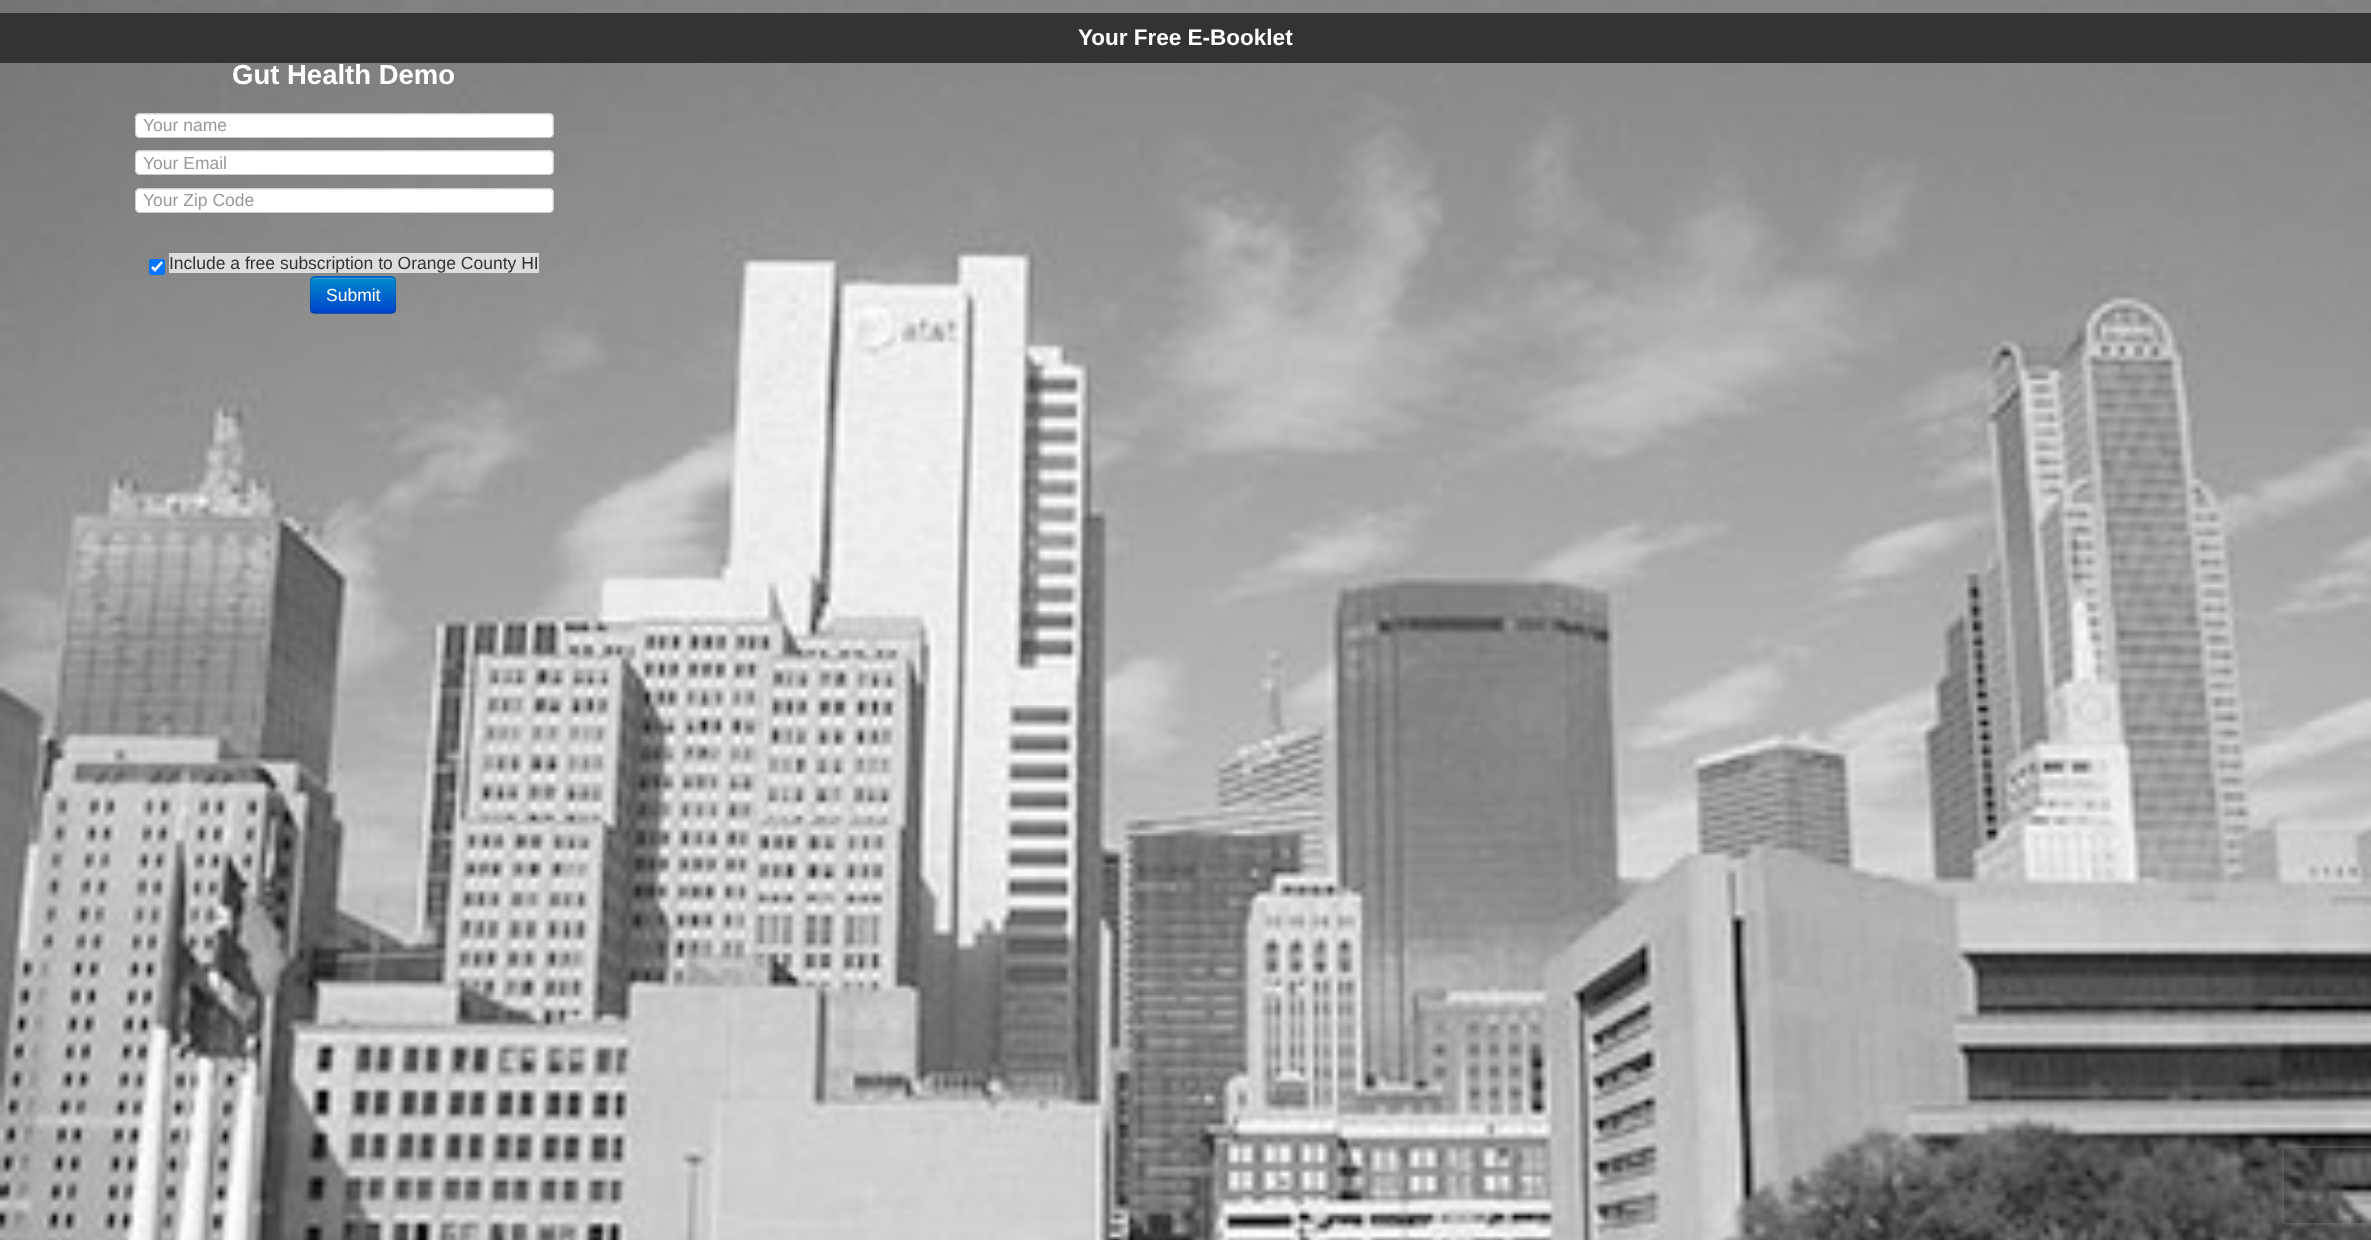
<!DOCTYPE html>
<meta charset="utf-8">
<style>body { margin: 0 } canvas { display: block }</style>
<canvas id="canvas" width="2371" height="1240"></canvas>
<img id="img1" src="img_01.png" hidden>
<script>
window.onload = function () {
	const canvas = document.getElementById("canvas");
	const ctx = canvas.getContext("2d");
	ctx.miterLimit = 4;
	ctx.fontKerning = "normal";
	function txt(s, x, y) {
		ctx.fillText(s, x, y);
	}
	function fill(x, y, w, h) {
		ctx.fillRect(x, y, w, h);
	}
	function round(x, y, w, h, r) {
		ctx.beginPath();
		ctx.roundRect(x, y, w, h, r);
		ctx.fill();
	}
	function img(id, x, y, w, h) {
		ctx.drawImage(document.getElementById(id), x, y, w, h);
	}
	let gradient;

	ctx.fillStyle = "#FFFFFF";
	fill(0, 0, 2371, 1240);
	img("img1", 0, 0, 2371, 1240);
	ctx.fillStyle = "#333333";
	fill(0, 13, 2371, 50);
	ctx.fillStyle = "#FFFFFF";
	round(135, 113, 419, 25, 5);
	ctx.fillStyle = "#ECECEC";
	ctx.beginPath();
	ctx.moveTo(140, 115);
	ctx.lineTo(549, 115);
	ctx.bezierCurveTo(553, 115, 552, 124, 552, 126);
	ctx.lineTo(552, 135);
	ctx.bezierCurveTo(554, 132, 553, 128, 553, 125);
	ctx.bezierCurveTo(553, 122, 554, 114, 549, 114);
	ctx.lineTo(138, 114);
	ctx.lineTo(136, 116);
	ctx.lineTo(136, 119);
	ctx.bezierCurveTo(136, 117, 138, 115, 140, 115);
	ctx.closePath();
	ctx.fill();
	ctx.beginPath();
	ctx.roundRect(135.5, 113.5, 418, 24, 4.5);
	ctx.strokeStyle = "#CCCCCC";
	ctx.stroke();
	ctx.fillStyle = "#FFFFFF";
	round(135, 150, 419, 25, 5);
	ctx.fillStyle = "#ECECEC";
	ctx.beginPath();
	ctx.moveTo(140, 152);
	ctx.lineTo(549, 152);
	ctx.bezierCurveTo(553, 152, 552, 161, 552, 164);
	ctx.lineTo(552, 173);
	ctx.bezierCurveTo(552, 172, 553, 171, 553, 170);
	ctx.lineTo(553, 155);
	ctx.bezierCurveTo(553, 153, 551, 151, 549, 151);
	ctx.lineTo(140, 151);
	ctx.bezierCurveTo(138, 151, 136, 153, 136, 155);
	ctx.lineTo(136, 156);
	ctx.bezierCurveTo(136, 154, 138, 152, 140, 152);
	ctx.closePath();
	ctx.fill();
	ctx.beginPath();
	ctx.roundRect(135.5, 150.5, 418, 24, 4.5);
	ctx.stroke();
	ctx.fillStyle = "#FFFFFF";
	round(135, 188, 419, 25, 5);
	ctx.fillStyle = "#ECECEC";
	ctx.beginPath();
	ctx.moveTo(140, 190);
	ctx.lineTo(549, 190);
	ctx.bezierCurveTo(553, 190, 552, 199, 552, 202);
	ctx.lineTo(552, 210);
	ctx.bezierCurveTo(554, 207, 553, 203, 553, 200);
	ctx.bezierCurveTo(553, 197, 554, 189, 549, 189);
	ctx.lineTo(138, 189);
	ctx.lineTo(136, 191);
	ctx.lineTo(136, 194);
	ctx.bezierCurveTo(136, 192, 138, 190, 140, 190);
	ctx.closePath();
	ctx.fill();
	ctx.beginPath();
	ctx.roundRect(135.5, 188.5, 418, 24, 4.5);
	ctx.stroke();
	ctx.fillStyle = "#0075FF";
	round(149, 259, 16, 16, 2.5);
	ctx.beginPath();
	ctx.moveTo(152, 267);
	ctx.lineTo(155, 270);
	ctx.lineTo(162, 262);
	ctx.strokeStyle = "#FFFFFF";
	ctx.lineWidth = 2.6;
	ctx.stroke();
	ctx.fillStyle = "#DDDDDD";
	fill(169, 253, 370, 20);
	ctx.fillStyle = "#006DCC";
	round(310, 276, 86, 38, 5);
	ctx.save();
	ctx.beginPath();
	ctx.roundRect(310, 276, 86, 38, 5);
	ctx.clip();
	gradient = ctx.createLinearGradient(353, 278, 353, 313);
	gradient.addColorStop(0, "#0088CC");
	gradient.addColorStop(1, "#0044CC");
	ctx.fillStyle = gradient;
	fill(310, 278, 86, 35);
	ctx.restore();
	ctx.fillStyle = "#339FD6";
	ctx.beginPath();
	ctx.moveTo(315, 279);
	ctx.lineTo(391, 279);
	ctx.bezierCurveTo(393, 279, 395, 280, 395, 282);
	ctx.bezierCurveTo(395, 280, 393, 278, 391, 278);
	ctx.lineTo(315, 278);
	ctx.bezierCurveTo(313, 278, 311, 280, 311, 282);
	ctx.bezierCurveTo(311, 280, 313, 279, 315, 279);
	ctx.closePath();
	ctx.fill();
	ctx.beginPath();
	ctx.moveTo(394.5, 312);
	ctx.lineTo(391.5, 313);
	ctx.lineTo(314.5, 313);
	ctx.lineTo(312, 312);
	ctx.strokeStyle = "rgba(0, 0, 0, 0.25)";
	ctx.lineWidth = 1.2;
	ctx.stroke();
	ctx.beginPath();
	ctx.moveTo(312, 312);
	ctx.bezierCurveTo(310, 310, 310.5, 306.5, 310.5, 304);
	ctx.lineTo(310.5, 295);
	ctx.bezierCurveTo(310.5, 275, 307.5, 277, 327.5, 277);
	ctx.lineTo(378.5, 277);
	ctx.bezierCurveTo(399, 277, 395.5, 275, 395.5, 295);
	ctx.lineTo(395.5, 304);
	ctx.bezierCurveTo(395.5, 306.5, 396.5, 310, 394.5, 312);
	ctx.strokeStyle = "rgba(0, 0, 0, 0.1)";
	ctx.stroke();
	ctx.save();
	ctx.beginPath();
	ctx.moveTo(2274, 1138);
	ctx.lineTo(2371, 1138);
	ctx.lineTo(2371, 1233);
	ctx.lineTo(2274, 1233);
	ctx.closePath();
	ctx.moveTo(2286.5, 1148);
	ctx.lineTo(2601.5, 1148);
	ctx.bezierCurveTo(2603, 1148, 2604, 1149, 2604, 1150.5);
	ctx.lineTo(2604, 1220.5);
	ctx.bezierCurveTo(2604, 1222, 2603, 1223, 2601.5, 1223);
	ctx.lineTo(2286.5, 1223);
	ctx.bezierCurveTo(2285, 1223, 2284, 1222, 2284, 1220.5);
	ctx.lineTo(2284, 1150.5);
	ctx.bezierCurveTo(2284, 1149, 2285, 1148, 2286.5, 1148);
	ctx.closePath();
	ctx.clip("evenodd");
	ctx.fillStyle = "#808080";
	ctx.filter = "blur(3px)";
	ctx.beginPath();
	ctx.roundRect(2284, 1148, 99, 75, 2.5);
	ctx.fill();
	ctx.filter = "none";
	ctx.restore();
	ctx.font = "bold 22.5px Liberation Sans";
	ctx.fillStyle = "#FFFFFF";
	txt("Your Free E-Booklet", 1078, 45);
	ctx.font = "bold 27.5px Liberation Sans";
	txt("Gut Health Demo", 232, 84);
	ctx.font = "17.5px Liberation Sans";
	ctx.fillStyle = "#999999";
	txt("Your name", 143, 131);
	txt("Your Email", 143, 169);
	txt("Your Zip Code", 143, 206);
	ctx.fillStyle = "#333333";
	txt("Include a free subscription to Orange County HI", 169, 269);
	ctx.fillStyle = "#FFFFFF";
	txt("Submit", 326, 301);
};
</script>
